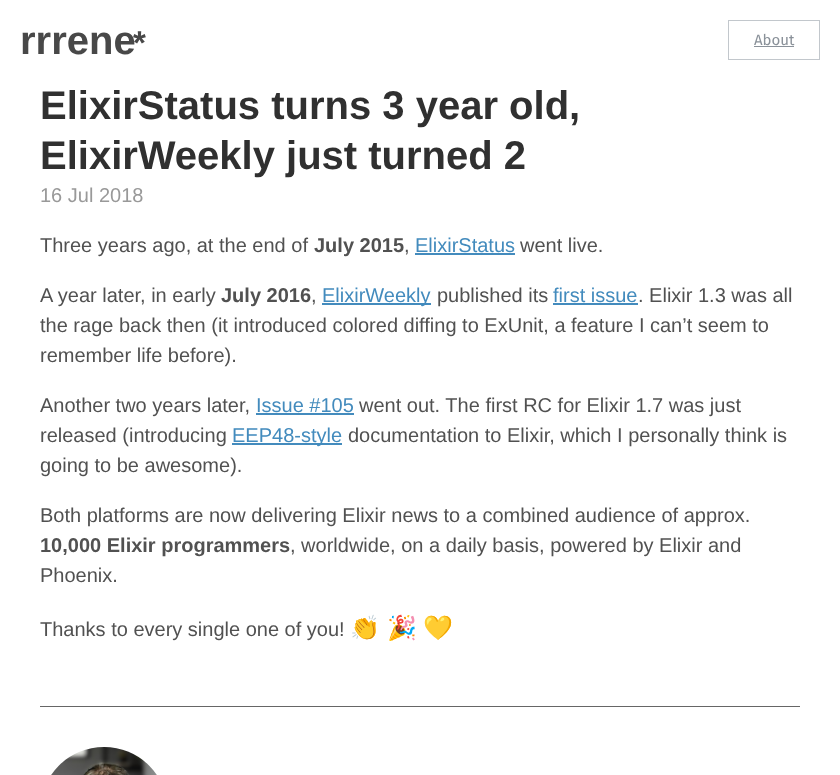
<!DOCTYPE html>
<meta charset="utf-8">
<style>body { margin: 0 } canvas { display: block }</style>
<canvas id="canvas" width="840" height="775"></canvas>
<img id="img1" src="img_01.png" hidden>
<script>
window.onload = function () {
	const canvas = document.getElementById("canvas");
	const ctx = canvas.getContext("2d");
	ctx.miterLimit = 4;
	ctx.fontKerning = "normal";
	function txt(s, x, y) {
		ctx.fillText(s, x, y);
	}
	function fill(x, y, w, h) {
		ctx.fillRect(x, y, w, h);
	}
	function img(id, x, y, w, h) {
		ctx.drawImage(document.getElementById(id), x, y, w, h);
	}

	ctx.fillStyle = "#FFFFFF";
	fill(0, 0, 840, 775);
	ctx.strokeStyle = "#C2C7CC";
	ctx.strokeRect(728.5, 20.5, 91, 39);
	ctx.fillStyle = "#8A9199";
	fill(754, 46, 40, 1);
	ctx.fillStyle = "#438BBD";
	fill(415, 253, 100, 2);
	fill(322, 303, 109, 2);
	fill(553, 303, 85, 2);
	fill(256, 413, 98, 2);
	fill(232, 443, 110, 2);
	ctx.fillStyle = "#666666";
	fill(40, 706, 760, 1);
	img("img1", 51, 747, 106, 28);
	ctx.font = "bold 40px Liberation Sans";
	ctx.fillStyle = "#484848";
	txt("rrrene", 20, 54);
	ctx.font = "bold 33px Liberation Sans";
	txt("*", 133, 54);
	ctx.font = "15px Fira Sans";
	ctx.fillStyle = "#8A9199";
	txt("About", 754, 45);
	ctx.font = "bold 40px Liberation Sans";
	ctx.fillStyle = "#303030";
	txt("ElixirStatus turns 3 year old,", 40, 119);
	txt("ElixirWeekly just turned 2", 40, 169);
	ctx.font = "20px Liberation Sans";
	ctx.fillStyle = "#999999";
	txt("16 Jul 2018", 40, 202);
	ctx.fillStyle = "#515151";
	txt("Three years ago, at the end of", 40, 252);
	ctx.font = "bold 20px Liberation Sans";
	txt("July 2015", 314, 252);
	ctx.font = "20px Liberation Sans";
	txt(",", 404, 252);
	ctx.fillStyle = "#438BBD";
	txt("ElixirStatus", 415, 252);
	ctx.fillStyle = "#515151";
	txt("went live.", 520, 252);
	txt("A year later, in early", 40, 302);
	ctx.font = "bold 20px Liberation Sans";
	txt("July 2016", 221, 302);
	ctx.font = "20px Liberation Sans";
	txt(",", 311, 302);
	ctx.fillStyle = "#438BBD";
	txt("ElixirWeekly", 322, 302);
	ctx.fillStyle = "#515151";
	txt("published its", 437, 302);
	ctx.fillStyle = "#438BBD";
	txt("first issue", 553, 302);
	ctx.fillStyle = "#515151";
	txt(". Elixir 1.3 was all", 638, 302);
	txt("the rage back then (it introduced colored diffing to ExUnit, a feature I can’t seem to", 40, 332);
	txt("remember life before).", 40, 362);
	txt("Another two years later,", 40, 412);
	ctx.fillStyle = "#438BBD";
	txt("Issue #105", 256, 412);
	ctx.fillStyle = "#515151";
	txt("went out. The first RC for Elixir 1.7 was just", 359, 412);
	txt("released (introducing", 40, 442);
	ctx.fillStyle = "#438BBD";
	txt("EEP48-style", 232, 442);
	ctx.fillStyle = "#515151";
	txt("documentation to Elixir, which I personally think is", 348, 442);
	txt("going to be awesome).", 40, 472);
	txt("Both platforms are now delivering Elixir news to a combined audience of approx.", 40, 522);
	ctx.font = "bold 20px Liberation Sans";
	txt("10,000 Elixir programmers", 40, 552);
	ctx.font = "20px Liberation Sans";
	txt(", worldwide, on a daily basis, powered by Elixir and", 290, 552);
	txt("Phoenix.", 40, 582);
	txt("Thanks to every single one of you!", 40, 636);
	ctx.font = "24px Noto Color Emoji";
	txt("👏", 350, 636);
	txt("🎉", 387, 636);
	txt("💛", 423, 636);
};
</script>
